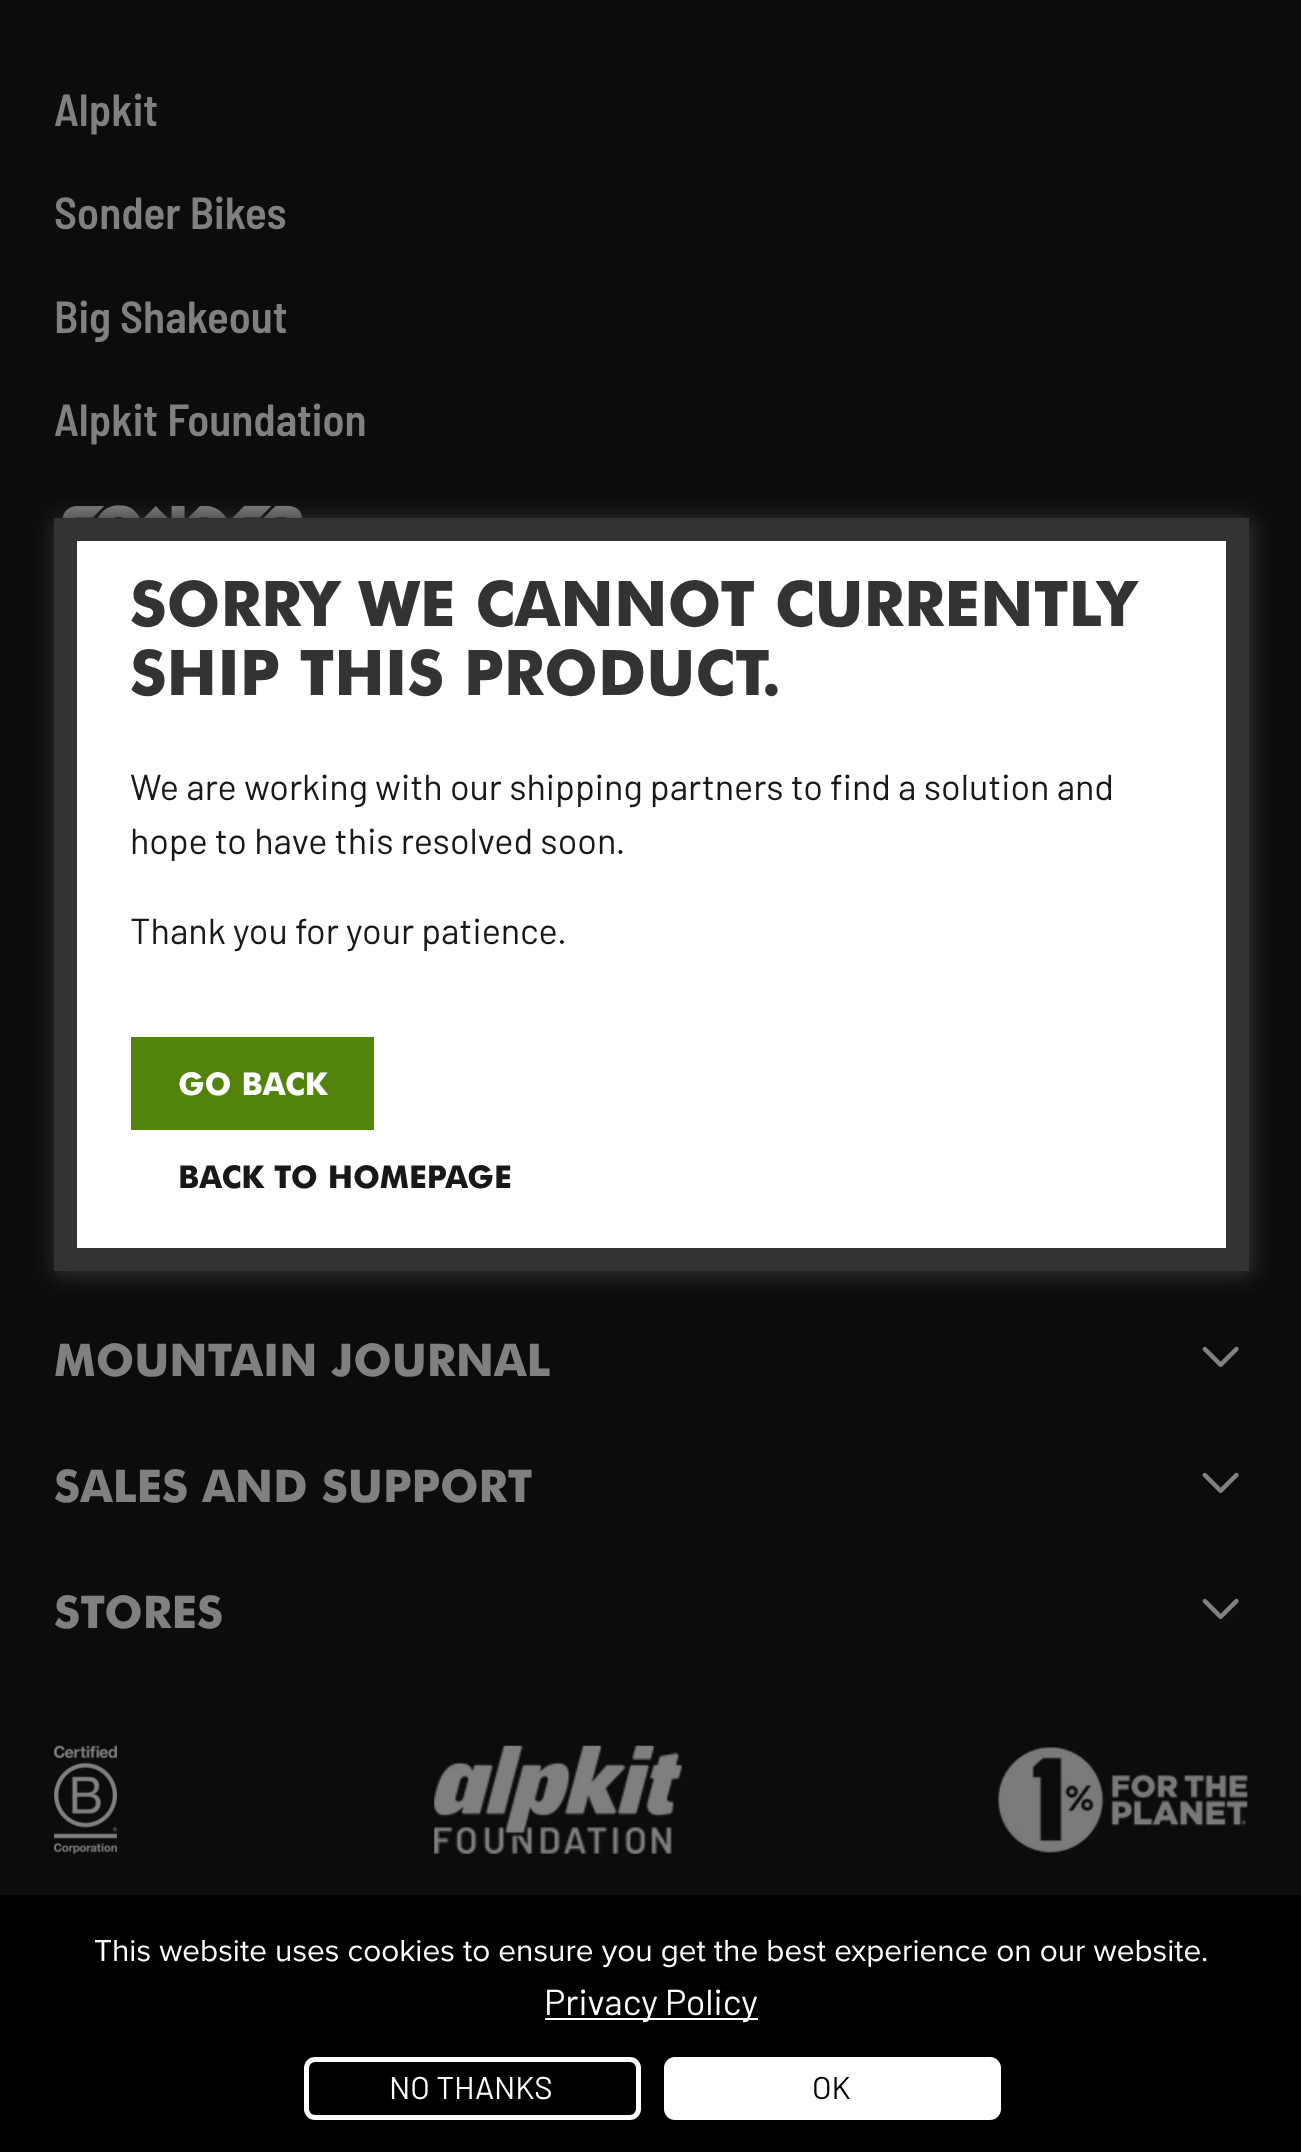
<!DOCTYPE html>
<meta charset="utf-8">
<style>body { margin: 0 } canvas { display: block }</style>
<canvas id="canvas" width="1301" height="2152"></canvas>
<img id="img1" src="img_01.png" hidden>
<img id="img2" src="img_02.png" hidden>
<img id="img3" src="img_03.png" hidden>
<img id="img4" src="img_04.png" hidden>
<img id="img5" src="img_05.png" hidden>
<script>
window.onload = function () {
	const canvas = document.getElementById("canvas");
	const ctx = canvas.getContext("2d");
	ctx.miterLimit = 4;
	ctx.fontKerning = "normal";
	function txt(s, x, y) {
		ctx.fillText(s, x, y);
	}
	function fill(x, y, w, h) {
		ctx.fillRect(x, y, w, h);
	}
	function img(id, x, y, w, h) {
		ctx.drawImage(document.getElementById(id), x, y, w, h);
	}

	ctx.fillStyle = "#0C0C0C";
	fill(0, 0, 1301, 2152);
	img("img1", 62, 505, 240, 13);
	img("img2", 1202, 1346, 37, 22);
	img("img2", 1202, 1472, 37, 22);
	img("img2", 1202, 1598, 37, 22);
	img("img3", 54, 1745, 63, 109);
	img("img4", 434, 1745, 248, 109);
	img("img5", 998, 1747, 250, 106);
	ctx.fillStyle = "#333333";
	ctx.filter = "blur(11px)";
	ctx.beginPath();
	ctx.rect(54, 518, 1199, 758);
	ctx.fill();
	ctx.filter = "none";
	ctx.fillStyle = "#FFFFFF";
	ctx.beginPath();
	ctx.rect(65.5, 529.5, 1172, 730);
	ctx.fill();
	ctx.strokeStyle = "#333333";
	ctx.lineWidth = 23;
	ctx.stroke();
	ctx.fillStyle = "#52840B";
	fill(131, 1037, 243, 93);
	ctx.fillStyle = "#000000";
	fill(0, 1895, 1301, 257);
	ctx.fillStyle = "#FFFFFF";
	fill(545, 2018, 213, 2);
	ctx.beginPath();
	ctx.roundRect(306.5, 2059.5, 332, 58, 8.5);
	ctx.strokeStyle = "#FFFFFF";
	ctx.lineWidth = 5;
	ctx.stroke();
	ctx.beginPath();
	ctx.roundRect(666.5, 2059.5, 332, 58, 8.5);
	ctx.fill();
	ctx.stroke();
	ctx.font = "600 45px Barlow Semi Condensed";
	ctx.fillStyle = "#808080";
	txt("Alpkit", 54, 126);
	txt("Sonder Bikes", 54, 229);
	txt("Big Shakeout", 54, 333);
	txt("Alpkit Foundation", 54, 436);
	ctx.font = "900 45px 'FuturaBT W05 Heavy'";
	txt("MOUNTAIN JOURNAL", 54, 1376);
	txt("SALES AND SUPPORT", 54, 1502);
	txt("STORES", 54, 1628);
	ctx.font = "900 63px 'FuturaBT W05 Heavy'";
	ctx.fillStyle = "#333333";
	txt("SORRY WE CANNOT CURRENTLY", 130, 626);
	txt("SHIP THIS PRODUCT.", 130, 695);
	ctx.font = "36px Barlow";
	ctx.fillStyle = "#181818";
	txt("We are working with our shipping partners to find a solution and", 130, 800);
	txt("hope to have this resolved soon.", 130, 854);
	txt("Thank you for your patience.", 130, 944);
	ctx.font = "900 31.5px 'FuturaBT W05 Heavy'";
	ctx.fillStyle = "#FFFFFF";
	txt("GO BACK", 178, 1095);
	ctx.fillStyle = "#181818";
	txt("BACK TO HOMEPAGE", 178, 1188);
	ctx.font = "31.5px Proxima Nova";
	ctx.fillStyle = "#FFFFFF";
	txt("This website uses cookies to ensure you get the best experience on our website.", 94, 1961);
	ctx.font = "36px Barlow";
	txt("Privacy Policy", 544, 2015);
	ctx.font = "31.5px Barlow";
	txt("NO THANKS", 389, 2099);
	ctx.fillStyle = "#000000";
	txt("OK", 812, 2099);
};
</script>
